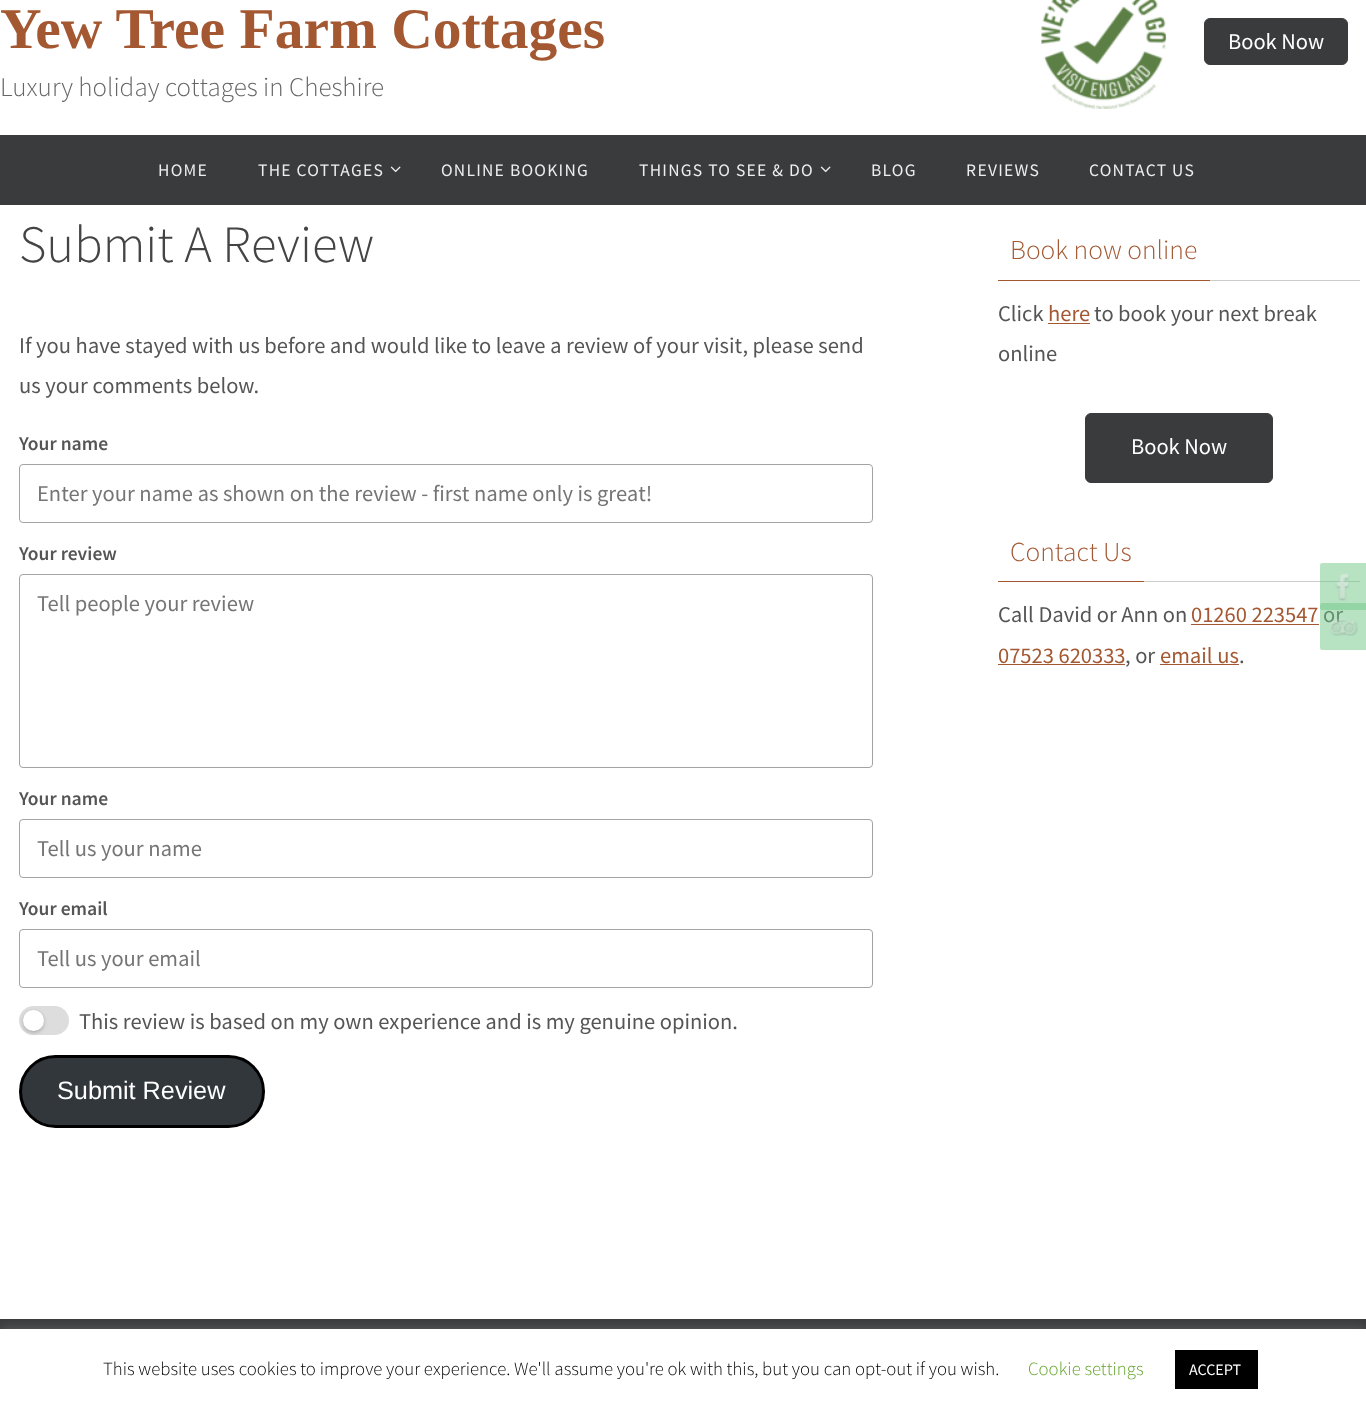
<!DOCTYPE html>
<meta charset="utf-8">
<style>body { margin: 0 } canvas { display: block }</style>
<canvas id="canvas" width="1366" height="1410"></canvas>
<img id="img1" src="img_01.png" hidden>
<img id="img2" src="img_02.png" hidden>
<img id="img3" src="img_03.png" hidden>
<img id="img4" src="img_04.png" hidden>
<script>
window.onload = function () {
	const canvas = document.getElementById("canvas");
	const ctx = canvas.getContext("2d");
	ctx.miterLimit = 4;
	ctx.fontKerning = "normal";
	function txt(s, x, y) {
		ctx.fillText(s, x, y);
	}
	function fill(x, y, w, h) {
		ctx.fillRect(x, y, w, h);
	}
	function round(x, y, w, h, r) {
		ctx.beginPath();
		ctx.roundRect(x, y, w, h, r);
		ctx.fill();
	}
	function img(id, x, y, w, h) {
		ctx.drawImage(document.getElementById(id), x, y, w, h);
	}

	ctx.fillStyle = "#FFFFFF";
	fill(0, 0, 1366, 1410);
	img("img1", 1041, 0, 126, 109);
	ctx.fillStyle = "#3A3B3D";
	ctx.beginPath();
	ctx.roundRect(1204.5, 18.5, 143, 46, 5.5);
	ctx.fill();
	ctx.strokeStyle = "#3A3B3D";
	ctx.stroke();
	fill(0, 135, 1366, 70);
	img("img2", 390, 166, 11, 7);
	img("img2", 820, 166, 11, 7);
	ctx.beginPath();
	ctx.roundRect(19.5, 464.5, 853, 58, 3.5);
	ctx.strokeStyle = "#A3A3A3";
	ctx.stroke();
	ctx.beginPath();
	ctx.roundRect(19.5, 574.5, 853, 193, 3.5);
	ctx.stroke();
	ctx.beginPath();
	ctx.roundRect(19.5, 819.5, 853, 58, 3.5);
	ctx.stroke();
	ctx.beginPath();
	ctx.roundRect(19.5, 929.5, 853, 58, 3.5);
	ctx.stroke();
	ctx.fillStyle = "#DDDDDD";
	round(19, 1006, 50, 29, 14.5);
	ctx.fillStyle = "rgba(0, 0, 0, 0.1)";
	ctx.filter = "blur(2px)";
	ctx.beginPath();
	ctx.roundRect(23, 1011, 21, 22, 10.5);
	ctx.fill();
	ctx.filter = "none";
	ctx.filter = "blur(1.5px)";
	ctx.beginPath();
	ctx.roundRect(23, 1011, 21, 22, 10.5);
	ctx.fill();
	ctx.filter = "none";
	ctx.fillStyle = "#FFFFFF";
	ctx.beginPath();
	ctx.arc(33.5, 1020.5, 10.5, 0, Math.PI * 2);
	ctx.fill();
	ctx.fillStyle = "#32373C";
	ctx.beginPath();
	ctx.roundRect(20.5, 1056.5, 243, 70, 35);
	ctx.fill();
	ctx.strokeStyle = "#000000";
	ctx.lineWidth = 3;
	ctx.stroke();
	ctx.fillStyle = "#CCCCCC";
	fill(1210, 280, 150, 1);
	ctx.fillStyle = "#A45832";
	fill(998, 280, 212, 1);
	fill(1048, 323, 42, 1);
	ctx.fillStyle = "#3A3B3D";
	ctx.beginPath();
	ctx.roundRect(1085.5, 413.5, 187, 69, 5.5);
	ctx.fill();
	ctx.strokeStyle = "#3A3B3D";
	ctx.lineWidth = 1;
	ctx.stroke();
	ctx.fillStyle = "#CCCCCC";
	fill(1144, 581, 216, 1);
	ctx.fillStyle = "#A45832";
	fill(998, 581, 146, 1);
	fill(1191, 624, 128, 1);
	fill(998, 664, 127, 1);
	fill(1160, 664, 79, 1);
	ctx.fillStyle = "#3A3B3D";
	fill(0, 1319, 1366, 10);
	ctx.fillStyle = "rgba(112, 199, 136, 0.5)";
	round(1320, 563, 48, 47, 2.5);
	img("img3", 1335, 573, 15, 28);
	ctx.fillStyle = "rgba(172, 171, 171, 0.3)";
	ctx.filter = "blur(6px)";
	ctx.beginPath();
	ctx.rect(0, 1328, 1366, 81);
	ctx.fill();
	ctx.filter = "none";
	ctx.fillStyle = "#FFFFFF";
	fill(0, 1329, 1366, 81);
	ctx.fillStyle = "#000000";
	fill(1175, 1350, 83, 39);
	ctx.font = "bold 57.5px Liberation Serif";
	ctx.fillStyle = "#A45832";
	txt("Yew Tree Farm Cottages", 0, 48);
	ctx.font = "300 27px Source Sans Pro";
	ctx.fillStyle = "#666666";
	txt("Luxury holiday cottages in Cheshire", 0, 96);
	ctx.font = "22.5px Source Sans Pro";
	ctx.fillStyle = "#FFFFFF";
	txt("Book Now", 1228, 49);
	ctx.letterSpacing = "1.25px";
	ctx.font = "17.5px Source Sans Pro";
	ctx.fillStyle = "#EEEEEE";
	txt("HOME", 158, 176);
	txt("THE COTTAGES", 258, 176);
	txt("ONLINE BOOKING", 441, 176);
	txt("THINGS TO SEE & DO", 639, 176);
	txt("BLOG", 871, 176);
	txt("REVIEWS", 966, 176);
	txt("CONTACT US", 1089, 176);
	ctx.letterSpacing = "0px";
	ctx.font = "300 52.5px Source Sans Pro";
	ctx.fillStyle = "#444444";
	txt("Submit A Review", 19, 262);
	ctx.font = "22.5px Source Sans Pro";
	ctx.fillStyle = "#555555";
	txt("If you have stayed with us before and would like to leave a review of your visit, please send", 19, 353);
	txt("us your comments below.", 19, 393);
	ctx.font = "600 19.5px Source Sans Pro";
	txt("Your name", 19, 450);
	ctx.font = "22.5px Source Sans Pro";
	ctx.fillStyle = "#757575";
	txt("Enter your name as shown on the review - first name only is great!", 37, 501);
	ctx.font = "600 19.5px Source Sans Pro";
	ctx.fillStyle = "#555555";
	txt("Your review", 19, 560);
	ctx.font = "22.5px Source Sans Pro";
	ctx.fillStyle = "#757575";
	txt("Tell people your review", 37, 611);
	ctx.font = "600 19.5px Source Sans Pro";
	ctx.fillStyle = "#555555";
	txt("Your name", 19, 805);
	ctx.font = "22.5px Source Sans Pro";
	ctx.fillStyle = "#757575";
	txt("Tell us your name", 37, 856);
	ctx.font = "600 19.5px Source Sans Pro";
	ctx.fillStyle = "#555555";
	txt("Your email", 19, 915);
	ctx.font = "22.5px Source Sans Pro";
	ctx.fillStyle = "#757575";
	txt("Tell us your email", 37, 966);
	ctx.fillStyle = "#555555";
	txt("This review is based on my own experience and is my genuine opinion.", 79, 1029);
	ctx.font = "25.25px Liberation Sans";
	ctx.fillStyle = "#FFFFFF";
	txt("Submit Review", 57, 1099);
	ctx.font = "300 27.5px Source Sans Pro";
	ctx.fillStyle = "#A45832";
	txt("Book now online", 1010, 259);
	ctx.font = "22.5px Source Sans Pro";
	ctx.fillStyle = "#555555";
	txt("Click", 998, 321);
	ctx.fillStyle = "#A45832";
	txt("here", 1048, 321);
	ctx.fillStyle = "#555555";
	txt("to book your next break", 1094, 321);
	txt("online", 998, 361);
	ctx.fillStyle = "#FFFFFF";
	txt("Book Now", 1131, 454);
	ctx.font = "300 27.5px Source Sans Pro";
	ctx.fillStyle = "#A45832";
	txt("Contact Us", 1010, 561);
	ctx.font = "22.5px Source Sans Pro";
	ctx.fillStyle = "#555555";
	txt("Call David or Ann on", 998, 622);
	ctx.fillStyle = "#A45832";
	txt("01260 223547", 1191, 622);
	ctx.fillStyle = "#555555";
	txt("or", 1323, 622);
	ctx.fillStyle = "#A45832";
	txt("07523 620333", 998, 663);
	ctx.fillStyle = "#555555";
	txt(", or", 1125, 663);
	ctx.fillStyle = "#A45832";
	txt("email us", 1160, 663);
	ctx.fillStyle = "#555555";
	txt(".", 1239, 663);
	ctx.fillStyle = "rgba(112, 199, 136, 0.5)";
	round(1320, 603, 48, 47, 2.5);
	img("img4", 1329, 618, 29, 18);
	ctx.font = "300 18.75px Source Sans Pro";
	ctx.fillStyle = "#000000";
	txt("This website uses cookies to improve your experience. We'll assume you're ok with this, but you can opt-out if you wish.", 103, 1375);
	ctx.fillStyle = "#62A329";
	txt("Cookie settings", 1028, 1375);
	ctx.font = "16px Source Sans Pro";
	ctx.fillStyle = "#FFFFFF";
	txt("ACCEPT", 1189, 1375);
};
</script>
